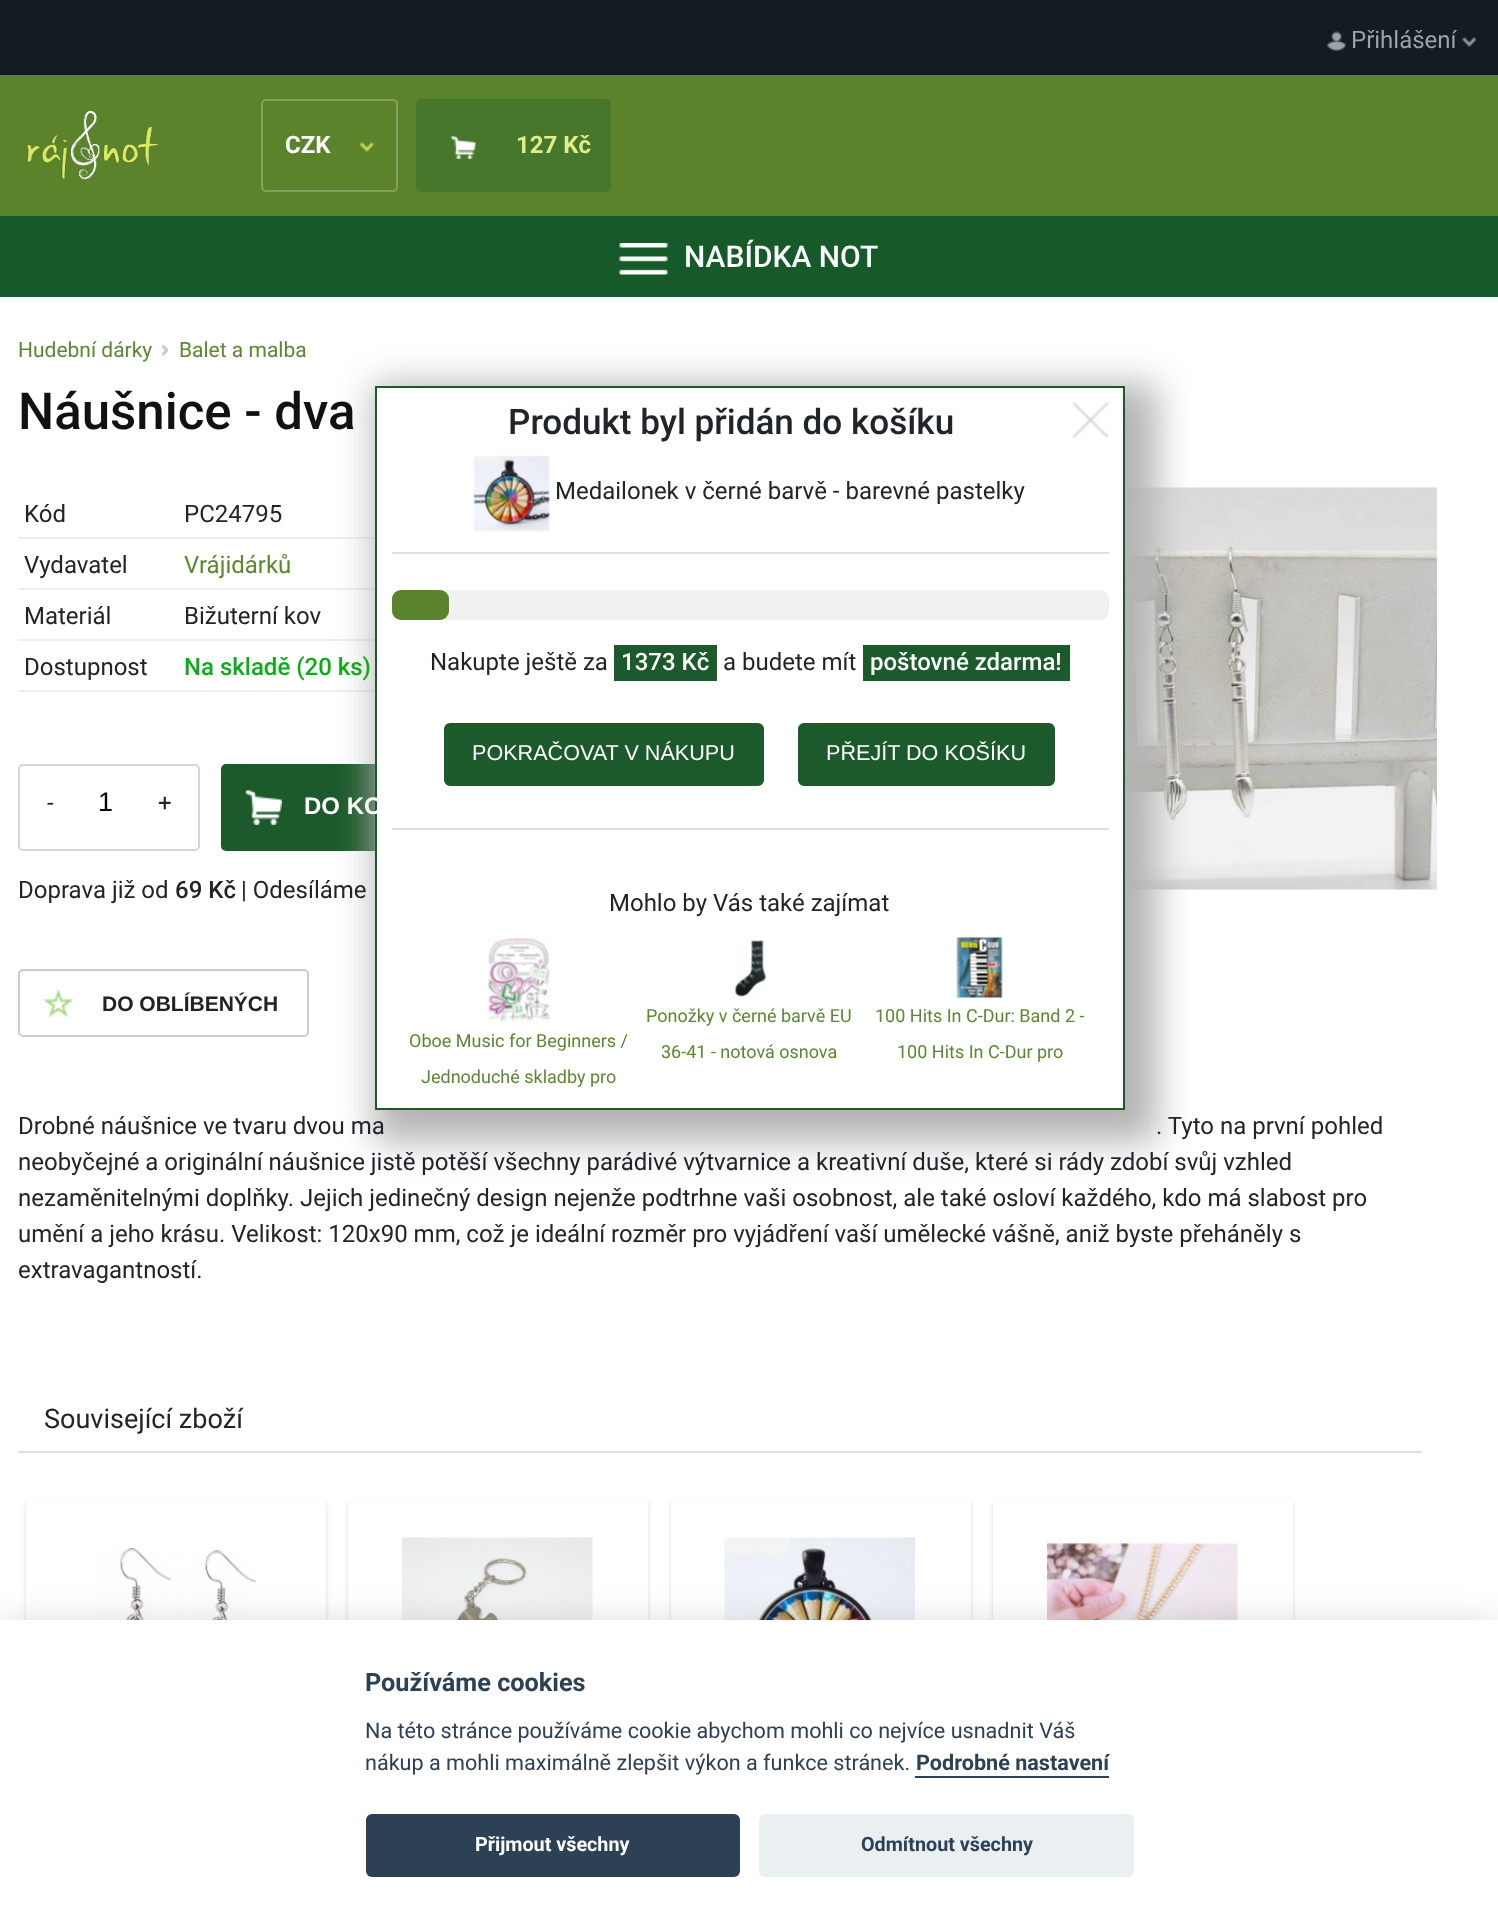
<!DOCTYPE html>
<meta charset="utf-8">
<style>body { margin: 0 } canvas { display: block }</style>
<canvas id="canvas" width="1498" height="1924"></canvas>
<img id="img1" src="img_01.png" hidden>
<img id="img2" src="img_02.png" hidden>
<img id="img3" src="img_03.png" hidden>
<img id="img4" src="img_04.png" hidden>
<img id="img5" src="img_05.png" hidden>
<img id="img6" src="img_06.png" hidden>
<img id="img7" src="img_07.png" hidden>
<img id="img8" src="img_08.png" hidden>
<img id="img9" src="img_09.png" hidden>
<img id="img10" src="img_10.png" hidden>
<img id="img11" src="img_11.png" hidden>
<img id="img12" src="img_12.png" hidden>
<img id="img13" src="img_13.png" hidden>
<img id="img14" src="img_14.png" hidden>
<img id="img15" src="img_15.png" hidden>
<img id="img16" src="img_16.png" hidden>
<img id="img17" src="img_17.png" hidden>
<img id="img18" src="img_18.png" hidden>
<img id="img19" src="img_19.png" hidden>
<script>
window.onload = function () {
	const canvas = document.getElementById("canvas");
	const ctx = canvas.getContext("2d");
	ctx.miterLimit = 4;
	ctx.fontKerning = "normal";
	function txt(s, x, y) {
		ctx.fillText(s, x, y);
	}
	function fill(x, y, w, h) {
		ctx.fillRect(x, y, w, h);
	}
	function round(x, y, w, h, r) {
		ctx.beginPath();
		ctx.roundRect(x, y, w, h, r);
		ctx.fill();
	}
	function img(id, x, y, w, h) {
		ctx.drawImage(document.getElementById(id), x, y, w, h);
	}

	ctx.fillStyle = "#FFFFFF";
	fill(0, 0, 1498, 1924);
	ctx.fillStyle = "#141B23";
	fill(0, 0, 1498, 75);
	img("img1", 1327, 31, 19, 20);
	img("img2", 1462, 37, 14, 10);
	ctx.fillStyle = "#5B832B";
	fill(0, 75, 1498, 141);
	img("img3", 26, 110, 133, 70);
	ctx.beginPath();
	ctx.roundRect(262, 100, 135, 91, 4);
	ctx.strokeStyle = "#83A25F";
	ctx.lineWidth = 2;
	ctx.stroke();
	img("img4", 360, 142, 14, 10);
	ctx.fillStyle = "#47772B";
	round(416, 99, 195, 93, 5);
	img("img5", 450, 135, 26, 24);
	ctx.fillStyle = "#165A29";
	fill(0, 216, 1498, 81);
	img("img6", 619, 243, 49, 32);
	img("img7", 162, 345, 6, 11);
	ctx.fillStyle = "#EEEEEE";
	fill(18, 537, 357, 2);
	fill(18, 588, 357, 2);
	fill(18, 639, 357, 2);
	fill(18, 690, 357, 2);
	img("img8", 1125, 487, 312, 403);
	ctx.beginPath();
	ctx.roundRect(19, 765, 180, 85, 4);
	ctx.strokeStyle = "#D6D6D8";
	ctx.stroke();
	ctx.fillStyle = "#1C5A2B";
	round(221, 764, 256, 87, 5);
	img("img9", 245, 789, 37, 36);
	img("img10", 43, 988, 31, 29);
	ctx.beginPath();
	ctx.roundRect(19, 970, 289, 66, 4);
	ctx.strokeStyle = "#CCCCCC";
	ctx.stroke();
	ctx.fillStyle = "#DEE2E6";
	fill(18, 1451, 1404, 2);
	ctx.fillStyle = "#B3B3B3";
	ctx.filter = "blur(18px)";
	ctx.beginPath();
	ctx.rect(374, 384, 783, 758);
	ctx.fill();
	ctx.filter = "none";
	ctx.fillStyle = "#FFFFFF";
	ctx.beginPath();
	ctx.rect(376, 387, 748, 722);
	ctx.fill();
	ctx.strokeStyle = "#1C5A2B";
	ctx.stroke();
	img("img11", 473, 455, 77, 77);
	ctx.fillStyle = "#DDDDDD";
	fill(392, 552, 717, 2);
	ctx.fillStyle = "#F1F1F1";
	round(392, 590, 717, 30, 9);
	ctx.fillStyle = "#5B832B";
	round(392, 590, 57, 30, 9);
	ctx.fillStyle = "#1C5A2B";
	fill(614, 645, 103, 36);
	fill(863, 645, 207, 36);
	ctx.beginPath();
	ctx.roundRect(445, 724, 318, 61, 5);
	ctx.fill();
	ctx.stroke();
	ctx.beginPath();
	ctx.roundRect(799, 724, 255, 61, 5);
	ctx.fill();
	ctx.stroke();
	ctx.fillStyle = "#DDDDDD";
	fill(392, 828, 717, 2);
	img("img12", 488, 938, 62, 83);
	img("img13", 735, 940, 31, 57);
	img("img14", 956, 937, 47, 61);
	img("img15", 1072, 401, 37, 38);
	ctx.save();
	ctx.beginPath();
	ctx.moveTo(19, 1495);
	ctx.lineTo(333, 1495);
	ctx.lineTo(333, 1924);
	ctx.lineTo(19, 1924);
	ctx.closePath();
	ctx.moveTo(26, 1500);
	ctx.lineTo(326, 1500);
	ctx.lineTo(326, 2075);
	ctx.lineTo(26, 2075);
	ctx.closePath();
	ctx.clip("evenodd");
	ctx.fillStyle = "rgba(60, 75, 100, 0.2)";
	ctx.filter = "blur(2px)";
	ctx.beginPath();
	ctx.rect(26, 1502, 300, 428);
	ctx.fill();
	ctx.filter = "none";
	ctx.restore();
	img("img16", 92, 1548, 167, 72);
	ctx.save();
	ctx.beginPath();
	ctx.moveTo(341, 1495);
	ctx.lineTo(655, 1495);
	ctx.lineTo(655, 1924);
	ctx.lineTo(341, 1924);
	ctx.closePath();
	ctx.moveTo(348, 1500);
	ctx.lineTo(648, 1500);
	ctx.lineTo(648, 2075);
	ctx.lineTo(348, 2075);
	ctx.closePath();
	ctx.clip("evenodd");
	ctx.fillStyle = "rgba(60, 75, 100, 0.2)";
	ctx.filter = "blur(2px)";
	ctx.beginPath();
	ctx.rect(348, 1502, 300, 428);
	ctx.fill();
	ctx.filter = "none";
	ctx.restore();
	img("img17", 402, 1537, 191, 83);
	ctx.save();
	ctx.beginPath();
	ctx.moveTo(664, 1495);
	ctx.lineTo(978, 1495);
	ctx.lineTo(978, 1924);
	ctx.lineTo(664, 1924);
	ctx.closePath();
	ctx.moveTo(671, 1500);
	ctx.lineTo(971, 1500);
	ctx.lineTo(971, 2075);
	ctx.lineTo(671, 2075);
	ctx.closePath();
	ctx.clip("evenodd");
	ctx.fillStyle = "rgba(60, 75, 100, 0.2)";
	ctx.filter = "blur(2px)";
	ctx.beginPath();
	ctx.rect(671, 1502, 300, 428);
	ctx.fill();
	ctx.filter = "none";
	ctx.restore();
	img("img18", 724, 1537, 191, 83);
	ctx.save();
	ctx.beginPath();
	ctx.moveTo(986, 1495);
	ctx.lineTo(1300, 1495);
	ctx.lineTo(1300, 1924);
	ctx.lineTo(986, 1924);
	ctx.closePath();
	ctx.moveTo(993, 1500);
	ctx.lineTo(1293, 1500);
	ctx.lineTo(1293, 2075);
	ctx.lineTo(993, 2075);
	ctx.closePath();
	ctx.clip("evenodd");
	ctx.fillStyle = "rgba(60, 75, 100, 0.2)";
	ctx.filter = "blur(2px)";
	ctx.beginPath();
	ctx.rect(993, 1502, 300, 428);
	ctx.fill();
	ctx.filter = "none";
	ctx.restore();
	img("img19", 1047, 1537, 191, 83);
	ctx.fillStyle = "rgba(2, 2, 3, 0.28)";
	ctx.filter = "blur(22.5px)";
	ctx.beginPath();
	ctx.rect(0, 1635, 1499, 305);
	ctx.fill();
	ctx.filter = "none";
	ctx.fillStyle = "#FFFFFF";
	fill(0, 1620, 1498, 304);
	ctx.fillStyle = "#2D4156";
	fill(915, 1776, 194, 2);
	round(366, 1814, 374, 63, 6);
	ctx.fillStyle = "#EAEFF2";
	round(759, 1814, 375, 63, 6);
	ctx.font = "24px Roboto";
	ctx.fillStyle = "#9DA1AA";
	txt("Přihlášení", 1351, 48);
	ctx.font = "bold 24px Roboto";
	ctx.fillStyle = "#FFFFFF";
	txt("CZK", 285, 153);
	ctx.fillStyle = "#DEEE8B";
	txt("127 Kč", 516, 153);
	ctx.font = "500 30px Roboto";
	ctx.fillStyle = "#FFFFFF";
	txt("NABÍDKA NOT", 684, 267);
	ctx.font = "21px Roboto";
	ctx.fillStyle = "#5C8630";
	txt("Hudební dárky", 18, 357);
	txt("Balet a malba", 179, 357);
	ctx.font = "500 51px Roboto";
	ctx.fillStyle = "#111111";
	txt("Náušnice - dva", 18, 429);
	ctx.font = "24px Roboto";
	ctx.fillStyle = "#212529";
	txt("Kód", 24, 522);
	txt("PC24795", 184, 522);
	txt("Vydavatel", 24, 573);
	ctx.fillStyle = "#5C8630";
	txt("Vrájidárků", 184, 573);
	ctx.fillStyle = "#212529";
	txt("Materiál", 24, 624);
	txt("Bižuterní kov", 184, 624);
	txt("Dostupnost", 24, 675);
	ctx.font = "500 24px Roboto";
	ctx.fillStyle = "#0CAC17";
	txt("Na skladě (20 ks)", 184, 675);
	ctx.font = "24px Roboto";
	ctx.fillStyle = "#212529";
	txt("-", 47, 811);
	ctx.font = "27px Liberation Sans";
	ctx.fillStyle = "#000000";
	txt("1", 98, 811);
	ctx.font = "24px Roboto";
	ctx.fillStyle = "#212529";
	txt("+", 158, 811);
	ctx.font = "bold 24px Liberation Sans";
	ctx.fillStyle = "#FFFFFF";
	txt("DO KO", 304, 814);
	ctx.font = "24px Roboto";
	ctx.fillStyle = "#212529";
	txt("Doprava již od", 18, 898);
	ctx.font = "500 24px Roboto";
	txt("69 Kč", 175, 898);
	ctx.font = "24px Roboto";
	txt("| Odesíláme", 241, 898);
	ctx.font = "bold 21px Liberation Sans";
	ctx.fillStyle = "#222222";
	txt("DO OBLÍBENÝCH", 102, 1011);
	ctx.font = "24px Roboto";
	ctx.fillStyle = "#212529";
	txt("Drobné náušnice ve tvaru dvou ma", 18, 1134);
	txt(". Tyto na první pohled", 1156, 1134);
	txt("neobyčejné a originální náušnice jistě potěší všechny parádivé výtvarnice a kreativní duše, které si rády zdobí svůj vzhled", 18, 1170);
	txt("nezaměnitelnými doplňky. Jejich jedinečný design nejenže podtrhne vaši osobnost, ale také osloví každého, kdo má slabost pro", 18, 1206);
	txt("umění a jeho krásu. Velikost: 120x90 mm, což je ideální rozměr pro vyjádření vaší umělecké vášně, aniž byste přeháněly s", 18, 1242);
	txt("extravagantností.", 18, 1278);
	ctx.font = "27px Roboto";
	txt("Související zboží", 44, 1428);
	ctx.font = "500 35.1px Roboto";
	txt("Produkt byl přidán do košíku", 508, 434);
	ctx.font = "24px Roboto";
	txt("Medailonek v černé barvě - barevné pastelky", 555, 499);
	txt("Nakupte ještě za", 430, 670);
	ctx.font = "500 24px Roboto";
	ctx.fillStyle = "#FFFFFF";
	txt("1373 Kč", 621, 670);
	ctx.font = "24px Roboto";
	ctx.fillStyle = "#212529";
	txt("a budete mít", 723, 670);
	ctx.font = "500 24px Roboto";
	ctx.fillStyle = "#FFFFFF";
	txt("poštovné zdarma!", 870, 670);
	ctx.font = "21.6px Liberation Sans";
	txt("POKRAČOVAT V NÁKUPU", 472, 760);
	txt("PŘEJÍT DO KOŠÍKU", 826, 760);
	ctx.font = "24px Roboto";
	ctx.fillStyle = "#212529";
	txt("Mohlo by Vás také zajímat", 609, 911);
	ctx.font = "18px Roboto";
	ctx.fillStyle = "#5C8630";
	txt("Oboe Music for Beginners /", 409, 1047);
	txt("Jednoduché skladby pro", 421, 1083);
	txt("Ponožky v černé barvě EU", 646, 1022);
	txt("36-41 - notová osnova", 661, 1058);
	txt("100 Hits In C-Dur: Band 2 -", 875, 1022);
	txt("100 Hits In C-Dur pro", 897, 1058);
	ctx.font = "bold 25.25px Roboto";
	ctx.fillStyle = "#2D4156";
	txt("Používáme cookies", 365, 1691);
	ctx.font = "21.6px Roboto";
	txt("Na této stránce používáme cookie abychom mohli co nejvíce usnadnit Váš", 365, 1738);
	txt("nákup a mohli maximálně zlepšit výkon a funkce stránek.", 365, 1770);
	ctx.font = "bold 21.6px Roboto";
	txt("Podrobné nastavení", 916, 1770);
	ctx.font = "bold 19.75px Roboto";
	ctx.fillStyle = "#FFFFFF";
	txt("Přijmout všechny", 475, 1851);
	ctx.fillStyle = "#2D4156";
	txt("Odmítnout všechny", 861, 1851);
};
</script>
